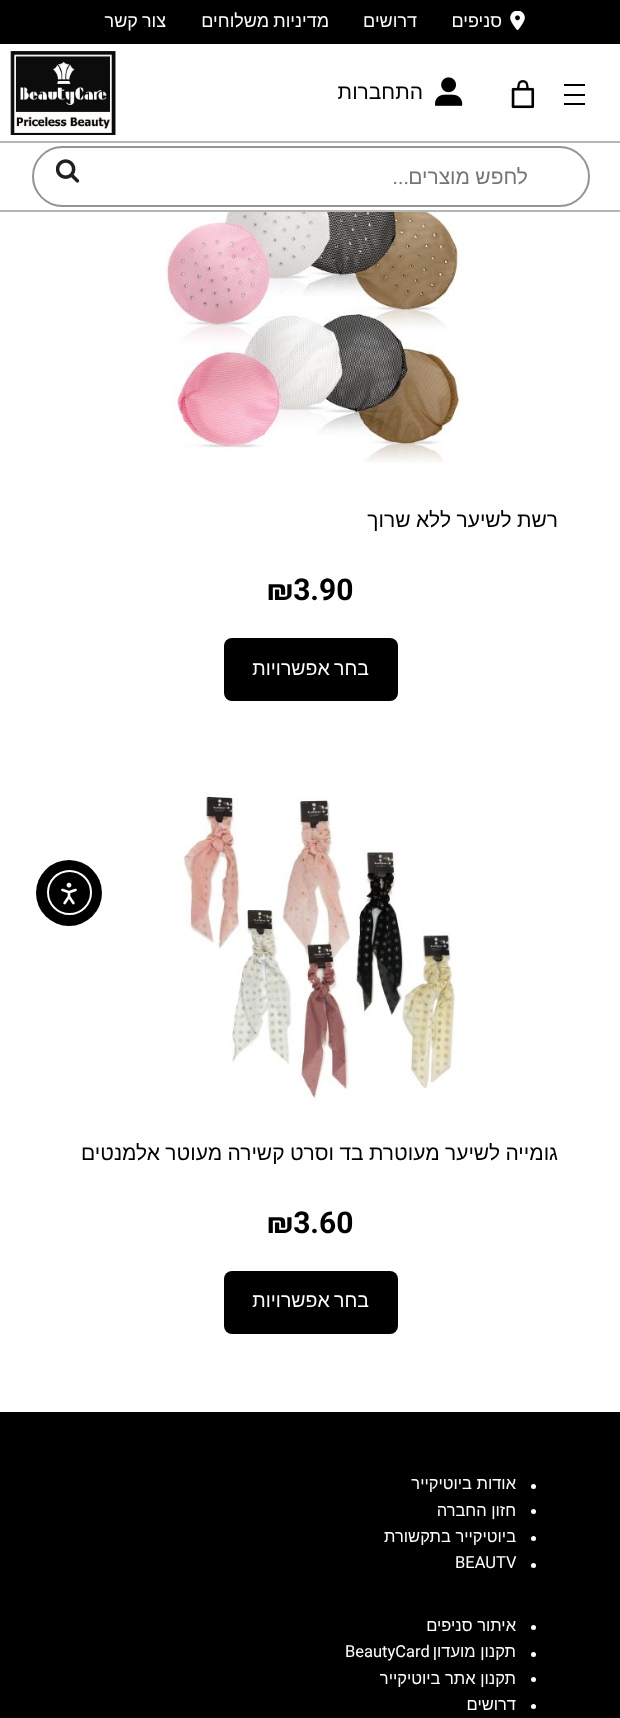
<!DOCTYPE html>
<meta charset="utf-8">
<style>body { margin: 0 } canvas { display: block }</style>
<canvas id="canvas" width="620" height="1718"></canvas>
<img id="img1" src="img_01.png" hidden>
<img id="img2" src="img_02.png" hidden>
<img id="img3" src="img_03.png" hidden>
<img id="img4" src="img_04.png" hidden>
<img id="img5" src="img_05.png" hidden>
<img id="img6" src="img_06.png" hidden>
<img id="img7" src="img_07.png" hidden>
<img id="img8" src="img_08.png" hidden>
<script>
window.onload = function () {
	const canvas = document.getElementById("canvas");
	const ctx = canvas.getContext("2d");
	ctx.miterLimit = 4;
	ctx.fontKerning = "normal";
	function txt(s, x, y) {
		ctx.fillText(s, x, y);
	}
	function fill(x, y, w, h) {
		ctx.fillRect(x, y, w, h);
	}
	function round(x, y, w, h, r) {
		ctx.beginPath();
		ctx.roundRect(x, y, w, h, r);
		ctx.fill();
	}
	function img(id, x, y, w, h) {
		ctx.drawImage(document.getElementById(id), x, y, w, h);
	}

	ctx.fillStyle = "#FFFFFF";
	fill(0, 0, 620, 1718);
	ctx.fillStyle = "#000000";
	fill(0, 0, 620, 44);
	img("img1", 510, 11, 15, 19);
	fill(564, 84, 21, 2);
	fill(564, 94, 21, 2);
	fill(564, 103, 21, 2);
	img("img2", 511, 80, 24, 29);
	img("img3", 435, 77, 28, 29);
	img("img4", 10, 51, 106, 84);
	ctx.fillStyle = "#B6B6B6";
	fill(0, 141, 620, 2);
	fill(0, 210, 620, 2);
	ctx.beginPath();
	ctx.roundRect(33, 147, 556, 59, 29.5);
	ctx.strokeStyle = "#949494";
	ctx.lineWidth = 2;
	ctx.stroke();
	img("img5", 56, 159, 24, 24);
	img("img6", 165, 212, 297, 251);
	ctx.fillStyle = "#000000";
	round(224, 638, 174, 63, 8);
	img("img7", 183, 791, 273, 310);
	round(224, 1271, 174, 63, 8);
	fill(0, 1412, 620, 306);
	ctx.fillStyle = "#FFFFFF";
	ctx.beginPath();
	ctx.arc(533.5, 1486.5, 2.5, 0, Math.PI * 2);
	ctx.fill();
	ctx.beginPath();
	ctx.arc(533.5, 1511.5, 2.5, 0, Math.PI * 2);
	ctx.fill();
	ctx.beginPath();
	ctx.arc(533.5, 1538.5, 2.5, 0, Math.PI * 2);
	ctx.fill();
	ctx.beginPath();
	ctx.arc(533.5, 1565.5, 2.5, 0, Math.PI * 2);
	ctx.fill();
	ctx.beginPath();
	ctx.arc(533.5, 1627.5, 2.5, 0, Math.PI * 2);
	ctx.fill();
	ctx.beginPath();
	ctx.arc(533.5, 1654.5, 2.5, 0, Math.PI * 2);
	ctx.fill();
	ctx.beginPath();
	ctx.arc(533.5, 1679.5, 2.5, 0, Math.PI * 2);
	ctx.fill();
	ctx.beginPath();
	ctx.arc(533.5, 1706.5, 2.5, 0, Math.PI * 2);
	ctx.fill();
	ctx.fillStyle = "#000000";
	ctx.beginPath();
	ctx.arc(69, 893, 33, 0, Math.PI * 2);
	ctx.fill();
	ctx.beginPath();
	ctx.arc(69.5, 892.5, 21.5, 0, Math.PI * 2);
	ctx.strokeStyle = "#FFFFFF";
	ctx.stroke();
	img("img8", 61, 882, 16, 23);
	ctx.direction = "rtl";
	ctx.font = "18px Liberation Sans";
	ctx.fillStyle = "#FFFFFF";
	txt("סניפים", 502, 27);
	txt("דרושים", 417, 27);
	ctx.wordSpacing = "-1px";
	txt("מדיניות משלוחים", 329, 27);
	txt("צור קשר", 166, 27);
	ctx.wordSpacing = "0px";
	ctx.font = "21px Liberation Sans";
	ctx.fillStyle = "#000000";
	txt("התחברות", 423, 99);
	ctx.wordSpacing = "-0.5px";
	ctx.fillStyle = "#757575";
	txt("לחפש מוצרים", 528, 184);
	ctx.wordSpacing = "0px";
	ctx.font = "21px Roboto";
	txt("...", 409, 184);
	ctx.wordSpacing = "-0.5px";
	ctx.font = "21px Liberation Sans";
	ctx.fillStyle = "#000000";
	txt("רשת לשיער ללא שרוך", 558, 527);
	ctx.wordSpacing = "0px";
	ctx.direction = "ltr";
	ctx.font = "bold 30px Roboto";
	txt("₪3.90", 267, 600);
	ctx.wordSpacing = "-1px";
	ctx.direction = "rtl";
	ctx.font = "19.5px Liberation Sans";
	ctx.fillStyle = "#FFFFFF";
	txt("בחר אפשרויות", 369, 675);
	ctx.wordSpacing = "-0.5px";
	ctx.font = "21px Liberation Sans";
	ctx.fillStyle = "#000000";
	txt("גומייה לשיער מעוטרת בד וסרט קשירה מעוטר אלמנטים", 558, 1160);
	ctx.wordSpacing = "0px";
	ctx.direction = "ltr";
	ctx.font = "bold 30px Roboto";
	txt("₪3.60", 267, 1233);
	ctx.wordSpacing = "-1px";
	ctx.direction = "rtl";
	ctx.font = "19.5px Liberation Sans";
	ctx.fillStyle = "#FFFFFF";
	txt("בחר אפשרויות", 369, 1307);
	ctx.wordSpacing = "0px";
	ctx.font = "16.5px Liberation Sans";
	txt("אודות ביוטיקייר", 516, 1489);
	txt("חזון החברה", 516, 1516);
	txt("ביוטיקייר בתקשורת", 516, 1542);
	ctx.direction = "ltr";
	ctx.font = "16.5px Roboto";
	txt("BEAUTV", 455, 1568);
	ctx.direction = "rtl";
	ctx.font = "16.5px Liberation Sans";
	txt("איתור סניפים", 516, 1631);
	txt("תקנון מועדון", 516, 1657);
	ctx.direction = "ltr";
	ctx.font = "16.5px Roboto";
	txt("BeautyCard", 345, 1657);
	ctx.direction = "rtl";
	ctx.font = "16.5px Liberation Sans";
	txt("תקנון אתר ביוטיקייר", 516, 1684);
	txt("דרושים", 516, 1710);
};
</script>
